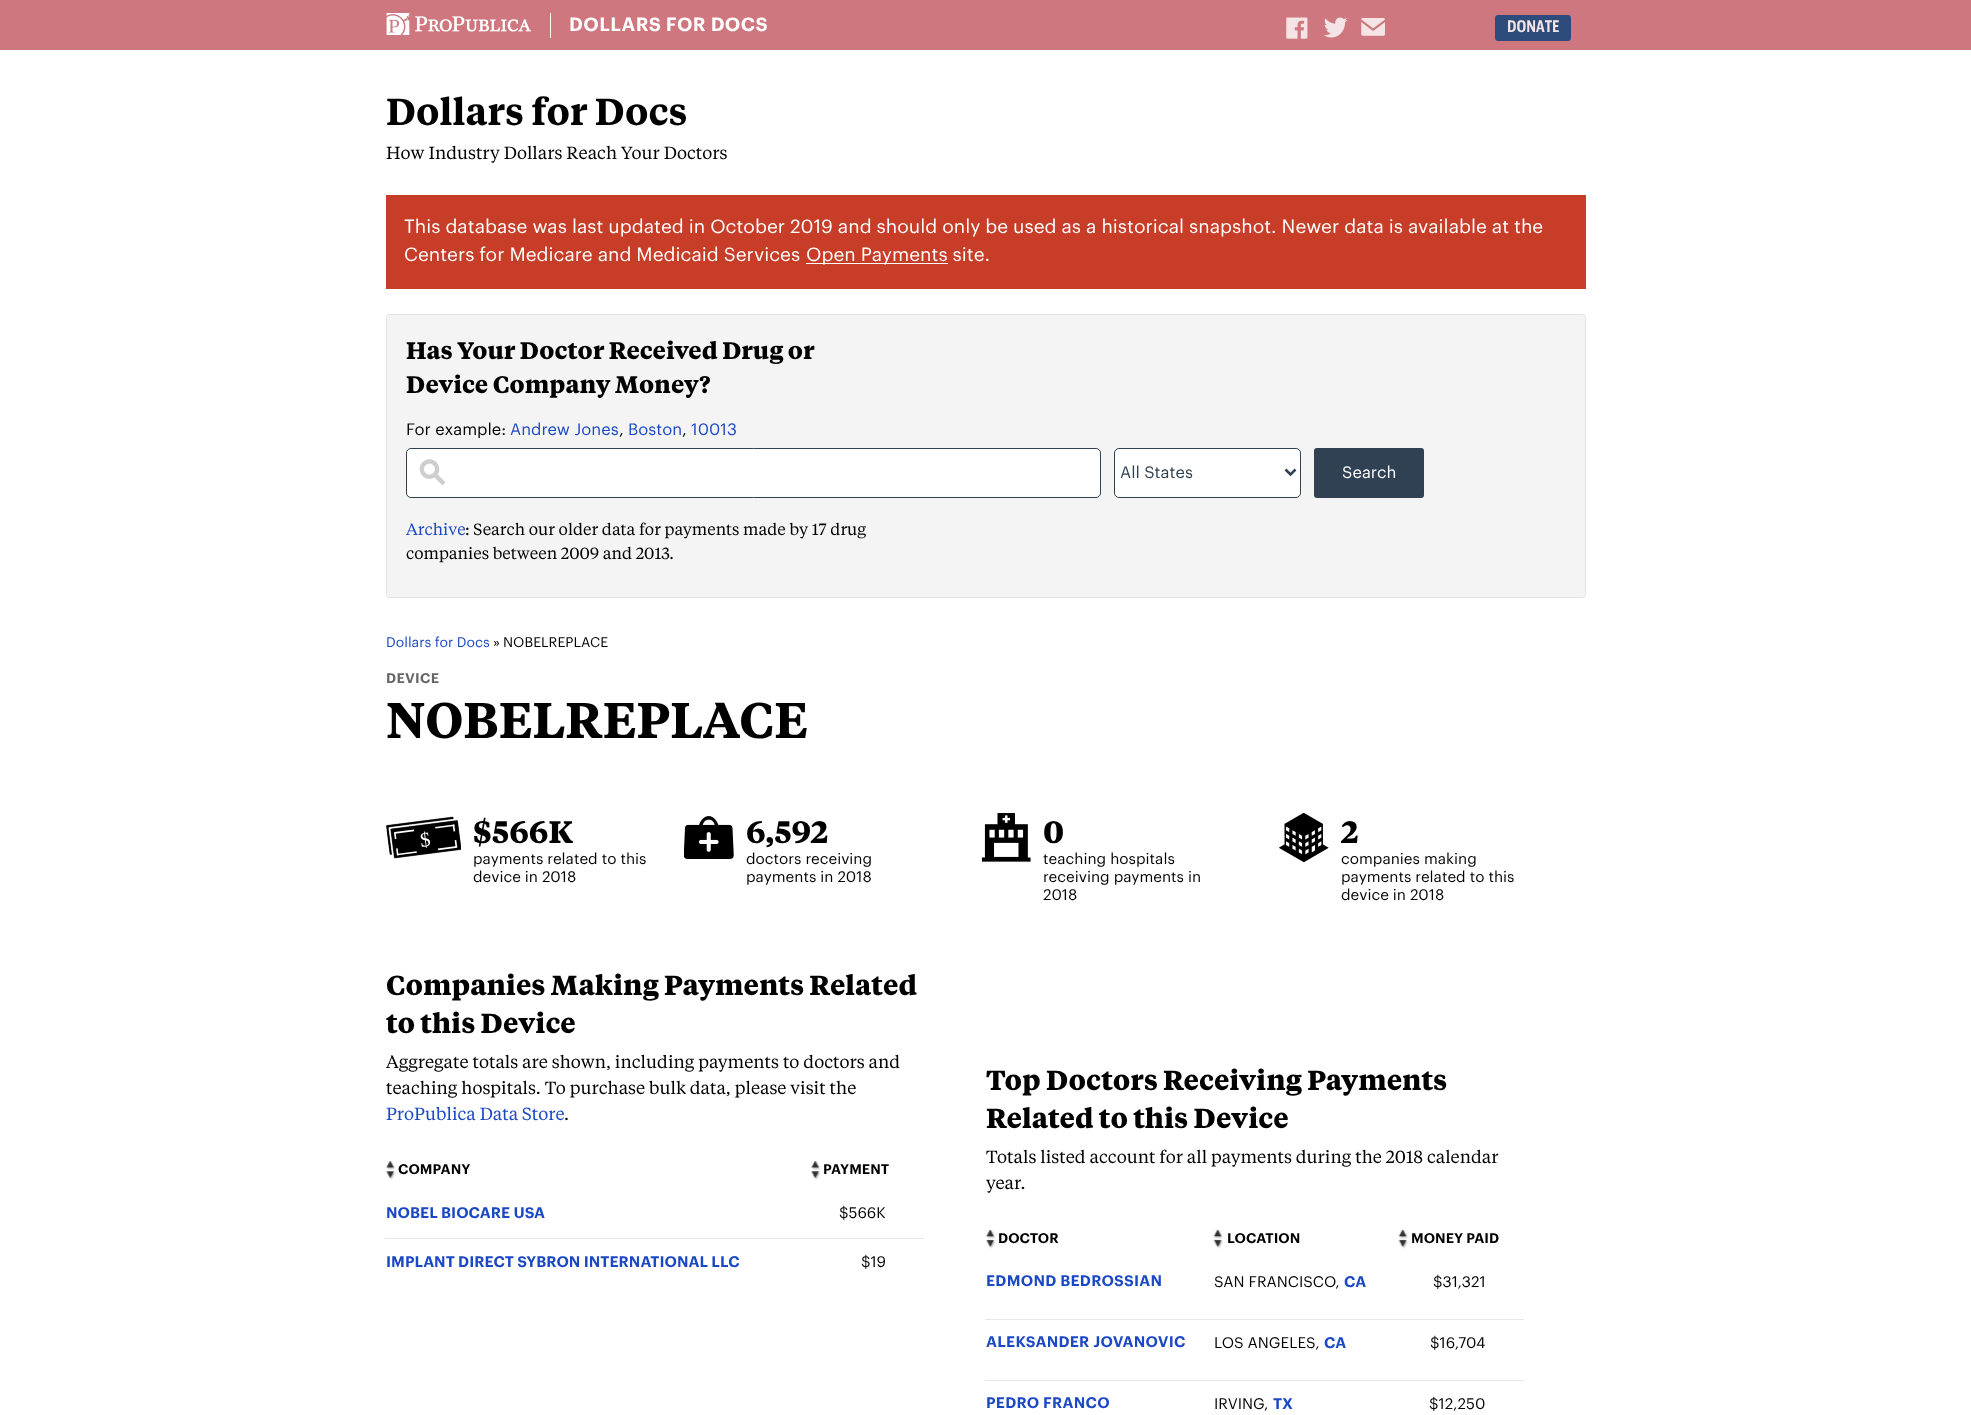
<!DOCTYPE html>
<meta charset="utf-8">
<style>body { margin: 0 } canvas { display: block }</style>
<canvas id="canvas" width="1971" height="1415"></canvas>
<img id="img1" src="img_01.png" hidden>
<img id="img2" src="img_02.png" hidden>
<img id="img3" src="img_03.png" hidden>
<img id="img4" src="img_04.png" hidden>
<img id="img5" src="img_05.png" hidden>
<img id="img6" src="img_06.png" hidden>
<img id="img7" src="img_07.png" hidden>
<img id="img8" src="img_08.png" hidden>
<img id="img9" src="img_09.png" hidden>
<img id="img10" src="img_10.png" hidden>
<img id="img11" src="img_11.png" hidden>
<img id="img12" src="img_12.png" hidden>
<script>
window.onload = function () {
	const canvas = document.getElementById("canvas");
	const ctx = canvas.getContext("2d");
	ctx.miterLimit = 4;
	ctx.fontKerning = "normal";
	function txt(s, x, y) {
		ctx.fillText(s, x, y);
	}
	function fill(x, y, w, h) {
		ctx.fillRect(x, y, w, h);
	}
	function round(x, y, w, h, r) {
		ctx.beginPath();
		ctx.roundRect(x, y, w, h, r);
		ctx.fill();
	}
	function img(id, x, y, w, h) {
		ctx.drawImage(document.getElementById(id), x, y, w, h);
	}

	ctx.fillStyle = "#FFFFFF";
	fill(0, 0, 1971, 1415);
	ctx.fillStyle = "#CE777E";
	fill(0, 0, 1971, 50);
	img("img1", 386, 13, 145, 22);
	ctx.fillStyle = "#FFFFFF";
	fill(550, 13, 1, 25);
	img("img2", 1286, 17, 22, 22);
	img("img3", 1324, 17, 24, 21);
	img("img4", 1361, 18, 24, 18);
	ctx.fillStyle = "#2E4C7B";
	round(1495, 15, 76, 26, 3);
	ctx.fillStyle = "#C73D28";
	fill(386, 195, 1200, 94);
	ctx.fillStyle = "#FFFFFF";
	fill(806, 263, 142, 1);
	ctx.fillStyle = "#F4F4F4";
	ctx.beginPath();
	ctx.roundRect(386.5, 314.5, 1199, 283, 3.5);
	ctx.fill();
	ctx.strokeStyle = "#DFE2E8";
	ctx.stroke();
	ctx.fillStyle = "#FFFFFF";
	round(406, 448, 695, 50, 5);
	img("img5", 419, 459, 27, 27);
	ctx.beginPath();
	ctx.roundRect(406.5, 448.5, 694, 49, 4.5);
	ctx.strokeStyle = "#304154";
	ctx.stroke();
	ctx.beginPath();
	ctx.roundRect(1114.5, 448.5, 186, 49, 4.5);
	ctx.fill();
	ctx.stroke();
	ctx.beginPath();
	ctx.moveTo(1285.5, 469.5);
	ctx.lineTo(1290.5, 474.5);
	ctx.lineTo(1295.5, 469.5);
	ctx.lineWidth = 2.5;
	ctx.stroke();
	ctx.fillStyle = "#304154";
	round(1314, 448, 110, 50, 3);
	img("img6", 386, 816, 75, 43);
	img("img7", 684, 816, 50, 43);
	img("img8", 981, 813, 50, 49);
	img("img9", 1279, 813, 50, 50);
	img("img10", 386, 1161, 10, 19);
	img("img10", 811, 1161, 10, 19);
	ctx.fillStyle = "#E7E7E7";
	fill(385, 1238, 539, 1);
	img("img11", 986, 1230, 10, 19);
	img("img12", 1213, 1230, 10, 19);
	img("img12", 1398, 1230, 10, 19);
	fill(985, 1319, 539, 1);
	fill(985, 1380, 539, 1);
	ctx.letterSpacing = "0.4px";
	ctx.font = "600 18.75px Graphik";
	ctx.fillStyle = "#FFFFFF";
	txt("DOLLARS FOR DOCS", 569, 31);
	ctx.letterSpacing = "0px";
	ctx.font = "bold 15.5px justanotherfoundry";
	ctx.fillStyle = "#F5E4E5";
	txt("DONATE", 1507, 32);
	ctx.font = "600 37.5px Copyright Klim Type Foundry";
	ctx.fillStyle = "#000000";
	txt("Dollars for Docs", 386, 125);
	ctx.font = "17.5px Copyright Klim Type Foundry";
	txt("How Industry Dollars Reach Your Doctors", 386, 159);
	ctx.font = "18.75px Graphik";
	ctx.fillStyle = "#FFFFFF";
	txt("This database was last updated in October 2019 and should only be used as a historical snapshot. Newer data is available at the", 404, 233);
	txt("Centers for Medicare and Medicaid Services", 404, 261);
	txt("Open Payments site.", 806, 261);
	ctx.font = "bold 23.75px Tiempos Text";
	ctx.fillStyle = "#000000";
	txt("Has Your Doctor Received Drug or", 406, 359);
	txt("Device Company Money?", 406, 393);
	ctx.font = "16.25px Graphik";
	txt("For example:", 406, 435);
	ctx.fillStyle = "#1B48C4";
	txt("Andrew Jones", 510, 435);
	ctx.fillStyle = "#000000";
	txt(",", 619, 435);
	ctx.fillStyle = "#1B48C4";
	txt("Boston", 628, 435);
	ctx.fillStyle = "#000000";
	txt(",", 682, 435);
	ctx.fillStyle = "#1B48C4";
	txt("10013", 691, 435);
	ctx.fillStyle = "#304154";
	txt("All States", 1120, 478);
	ctx.fillStyle = "#FFFFFF";
	txt("Search", 1342, 478);
	ctx.font = "16.25px Copyright Klim Type Foundry";
	ctx.fillStyle = "#1B48C4";
	txt("Archive", 406, 535);
	ctx.fillStyle = "#000000";
	txt(": Search our older data for payments made by 17 drug", 465, 535);
	txt("companies between 2009 and 2013.", 406, 559);
	ctx.font = "13.75px Graphik";
	ctx.fillStyle = "#1B48C4";
	txt("Dollars for Docs", 386, 647);
	ctx.fillStyle = "#000000";
	txt("»", 493, 647);
	txt("NOBELREPLACE", 503, 647);
	ctx.letterSpacing = "0.25px";
	ctx.font = "600 13.75px Graphik";
	ctx.fillStyle = "#666666";
	txt("DEVICE", 386, 683);
	ctx.letterSpacing = "0px";
	ctx.font = "600 50px Copyright Klim Type Foundry";
	ctx.fillStyle = "#000000";
	txt("NOBELREPLACE", 386, 738);
	ctx.font = "bold 31px Tiempos Text";
	txt("$566K", 473, 843);
	ctx.font = "15px Graphik";
	txt("payments related to this", 473, 864);
	txt("device in 2018", 473, 882);
	ctx.font = "bold 31px Tiempos Text";
	txt("6,592", 746, 843);
	ctx.font = "15px Graphik";
	txt("doctors receiving", 746, 864);
	txt("payments in 2018", 746, 882);
	ctx.font = "bold 31px Tiempos Text";
	txt("0", 1043, 843);
	ctx.font = "15px Graphik";
	txt("teaching hospitals", 1043, 864);
	txt("receiving payments in", 1043, 882);
	txt("2018", 1043, 900);
	ctx.font = "bold 31px Tiempos Text";
	txt("2", 1341, 843);
	ctx.font = "15px Graphik";
	txt("companies making", 1341, 864);
	txt("payments related to this", 1341, 882);
	txt("device in 2018", 1341, 900);
	ctx.font = "bold 27.5px Tiempos Text";
	txt("Companies Making Payments Related", 386, 995);
	txt("to this Device", 386, 1033);
	ctx.font = "17.5px Copyright Klim Type Foundry";
	txt("Aggregate totals are shown, including payments to doctors and", 386, 1068);
	txt("teaching hospitals. To purchase bulk data, please visit the", 386, 1094);
	ctx.fillStyle = "#1B48C4";
	txt("ProPublica Data Store", 386, 1120);
	ctx.fillStyle = "#000000";
	txt(".", 564, 1120);
	ctx.font = "600 13.75px Graphik";
	txt("COMPANY", 398, 1174);
	txt("PAYMENT", 823, 1174);
	ctx.font = "600 15px Graphik";
	ctx.fillStyle = "#1B48C4";
	txt("NOBEL BIOCARE USA", 386, 1218);
	ctx.font = "15px Graphik";
	ctx.fillStyle = "#000000";
	txt("$566K", 839, 1218);
	ctx.font = "600 15px Graphik";
	ctx.fillStyle = "#1B48C4";
	txt("IMPLANT DIRECT SYBRON INTERNATIONAL LLC", 386, 1267);
	ctx.font = "15px Graphik";
	ctx.fillStyle = "#000000";
	txt("$19", 861, 1267);
	ctx.font = "bold 27.5px Tiempos Text";
	txt("Top Doctors Receiving Payments", 986, 1090);
	txt("Related to this Device", 986, 1128);
	ctx.font = "17.5px Copyright Klim Type Foundry";
	txt("Totals listed account for all payments during the 2018 calendar", 986, 1163);
	txt("year.", 986, 1189);
	ctx.font = "600 13.75px Graphik";
	txt("DOCTOR", 998, 1243);
	txt("LOCATION", 1227, 1243);
	txt("MONEY PAID", 1411, 1243);
	ctx.letterSpacing = "0.25px";
	ctx.font = "600 15px Graphik";
	ctx.fillStyle = "#1B48C4";
	txt("EDMOND BEDROSSIAN", 986, 1286);
	ctx.letterSpacing = "0px";
	ctx.font = "15px Graphik";
	ctx.fillStyle = "#000000";
	txt("SAN FRANCISCO,", 1214, 1287);
	ctx.font = "600 15px Graphik";
	ctx.fillStyle = "#1B48C4";
	txt("CA", 1344, 1287);
	ctx.font = "15px Graphik";
	ctx.fillStyle = "#000000";
	txt("$31,321", 1433, 1287);
	ctx.letterSpacing = "0.25px";
	ctx.font = "600 15px Graphik";
	ctx.fillStyle = "#1B48C4";
	txt("ALEKSANDER JOVANOVIC", 986, 1347);
	ctx.letterSpacing = "0px";
	ctx.font = "15px Graphik";
	ctx.fillStyle = "#000000";
	txt("LOS ANGELES,", 1214, 1348);
	ctx.font = "600 15px Graphik";
	ctx.fillStyle = "#1B48C4";
	txt("CA", 1324, 1348);
	ctx.font = "15px Graphik";
	ctx.fillStyle = "#000000";
	txt("$16,704", 1430, 1348);
	ctx.letterSpacing = "0.25px";
	ctx.font = "600 15px Graphik";
	ctx.fillStyle = "#1B48C4";
	txt("PEDRO FRANCO", 986, 1408);
	ctx.letterSpacing = "0px";
	ctx.font = "15px Graphik";
	ctx.fillStyle = "#000000";
	txt("IRVING,", 1214, 1409);
	ctx.font = "600 15px Graphik";
	ctx.fillStyle = "#1B48C4";
	txt("TX", 1273, 1409);
	ctx.font = "15px Graphik";
	ctx.fillStyle = "#000000";
	txt("$12,250", 1429, 1409);
};
</script>
